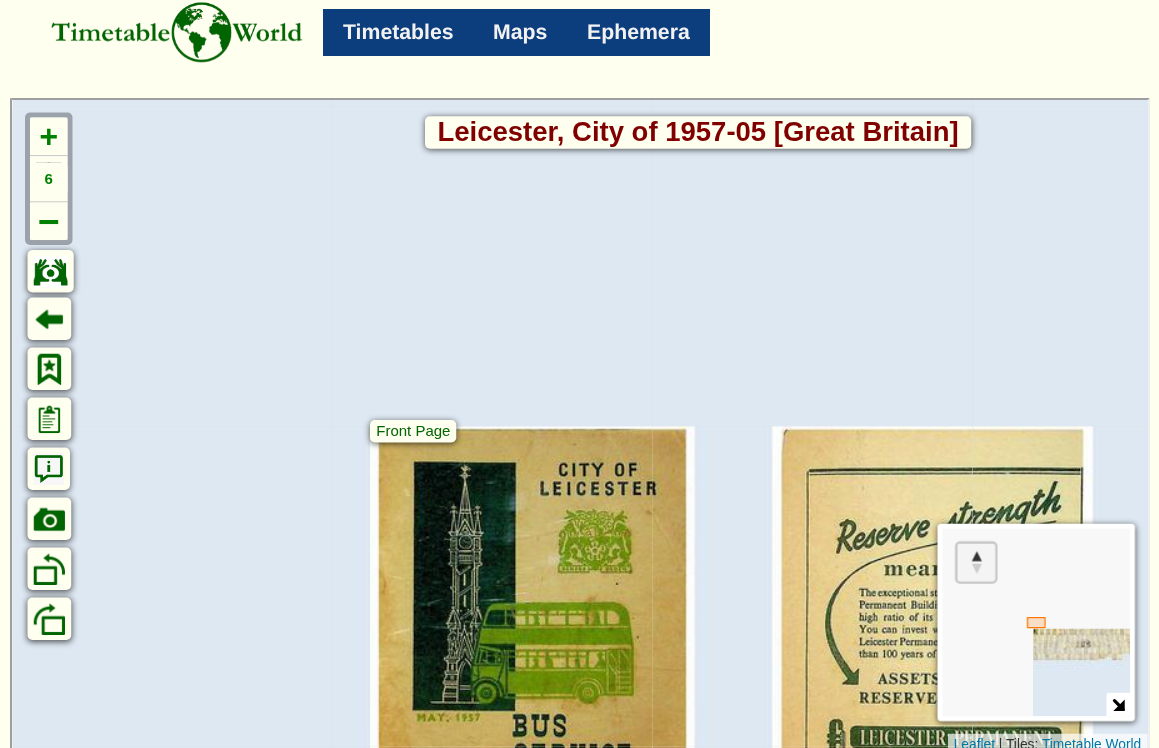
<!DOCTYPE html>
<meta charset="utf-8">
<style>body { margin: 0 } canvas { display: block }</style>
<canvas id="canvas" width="1159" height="748"></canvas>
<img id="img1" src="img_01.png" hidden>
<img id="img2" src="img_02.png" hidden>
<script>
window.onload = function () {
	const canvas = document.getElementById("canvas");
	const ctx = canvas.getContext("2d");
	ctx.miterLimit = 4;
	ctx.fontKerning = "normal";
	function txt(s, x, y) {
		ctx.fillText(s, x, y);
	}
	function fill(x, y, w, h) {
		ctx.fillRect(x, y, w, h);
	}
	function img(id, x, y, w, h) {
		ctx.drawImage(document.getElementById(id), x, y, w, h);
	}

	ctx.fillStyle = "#FFFFF0";
	fill(0, 0, 1159, 748);
	img("img1", 51, 2, 252, 61);
	ctx.fillStyle = "#0C3D7C";
	fill(323, 9, 387, 47);
	ctx.fillStyle = "#9F9F9F";
	ctx.beginPath();
	ctx.moveTo(10, 98);
	ctx.lineTo(1150, 98);
	ctx.lineTo(1148, 100);
	ctx.lineTo(12, 100);
	ctx.closePath();
	ctx.fill();
	ctx.beginPath();
	ctx.moveTo(10, 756);
	ctx.lineTo(10, 98);
	ctx.lineTo(12, 100);
	ctx.lineTo(12, 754);
	ctx.closePath();
	ctx.fill();
	img("img2", 12, 100, 1136, 648);
	ctx.fillStyle = "#EEEEEE";
	ctx.beginPath();
	ctx.moveTo(1150, 98);
	ctx.lineTo(1150, 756);
	ctx.lineTo(1148, 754);
	ctx.lineTo(1148, 100);
	ctx.closePath();
	ctx.fill();
	ctx.font = "bold 21.25px Liberation Sans";
	ctx.fillStyle = "#F2F2F2";
	txt("Timetables", 343, 39);
	txt("Maps", 493, 39);
	txt("Ephemera", 587, 39);
};
</script>
